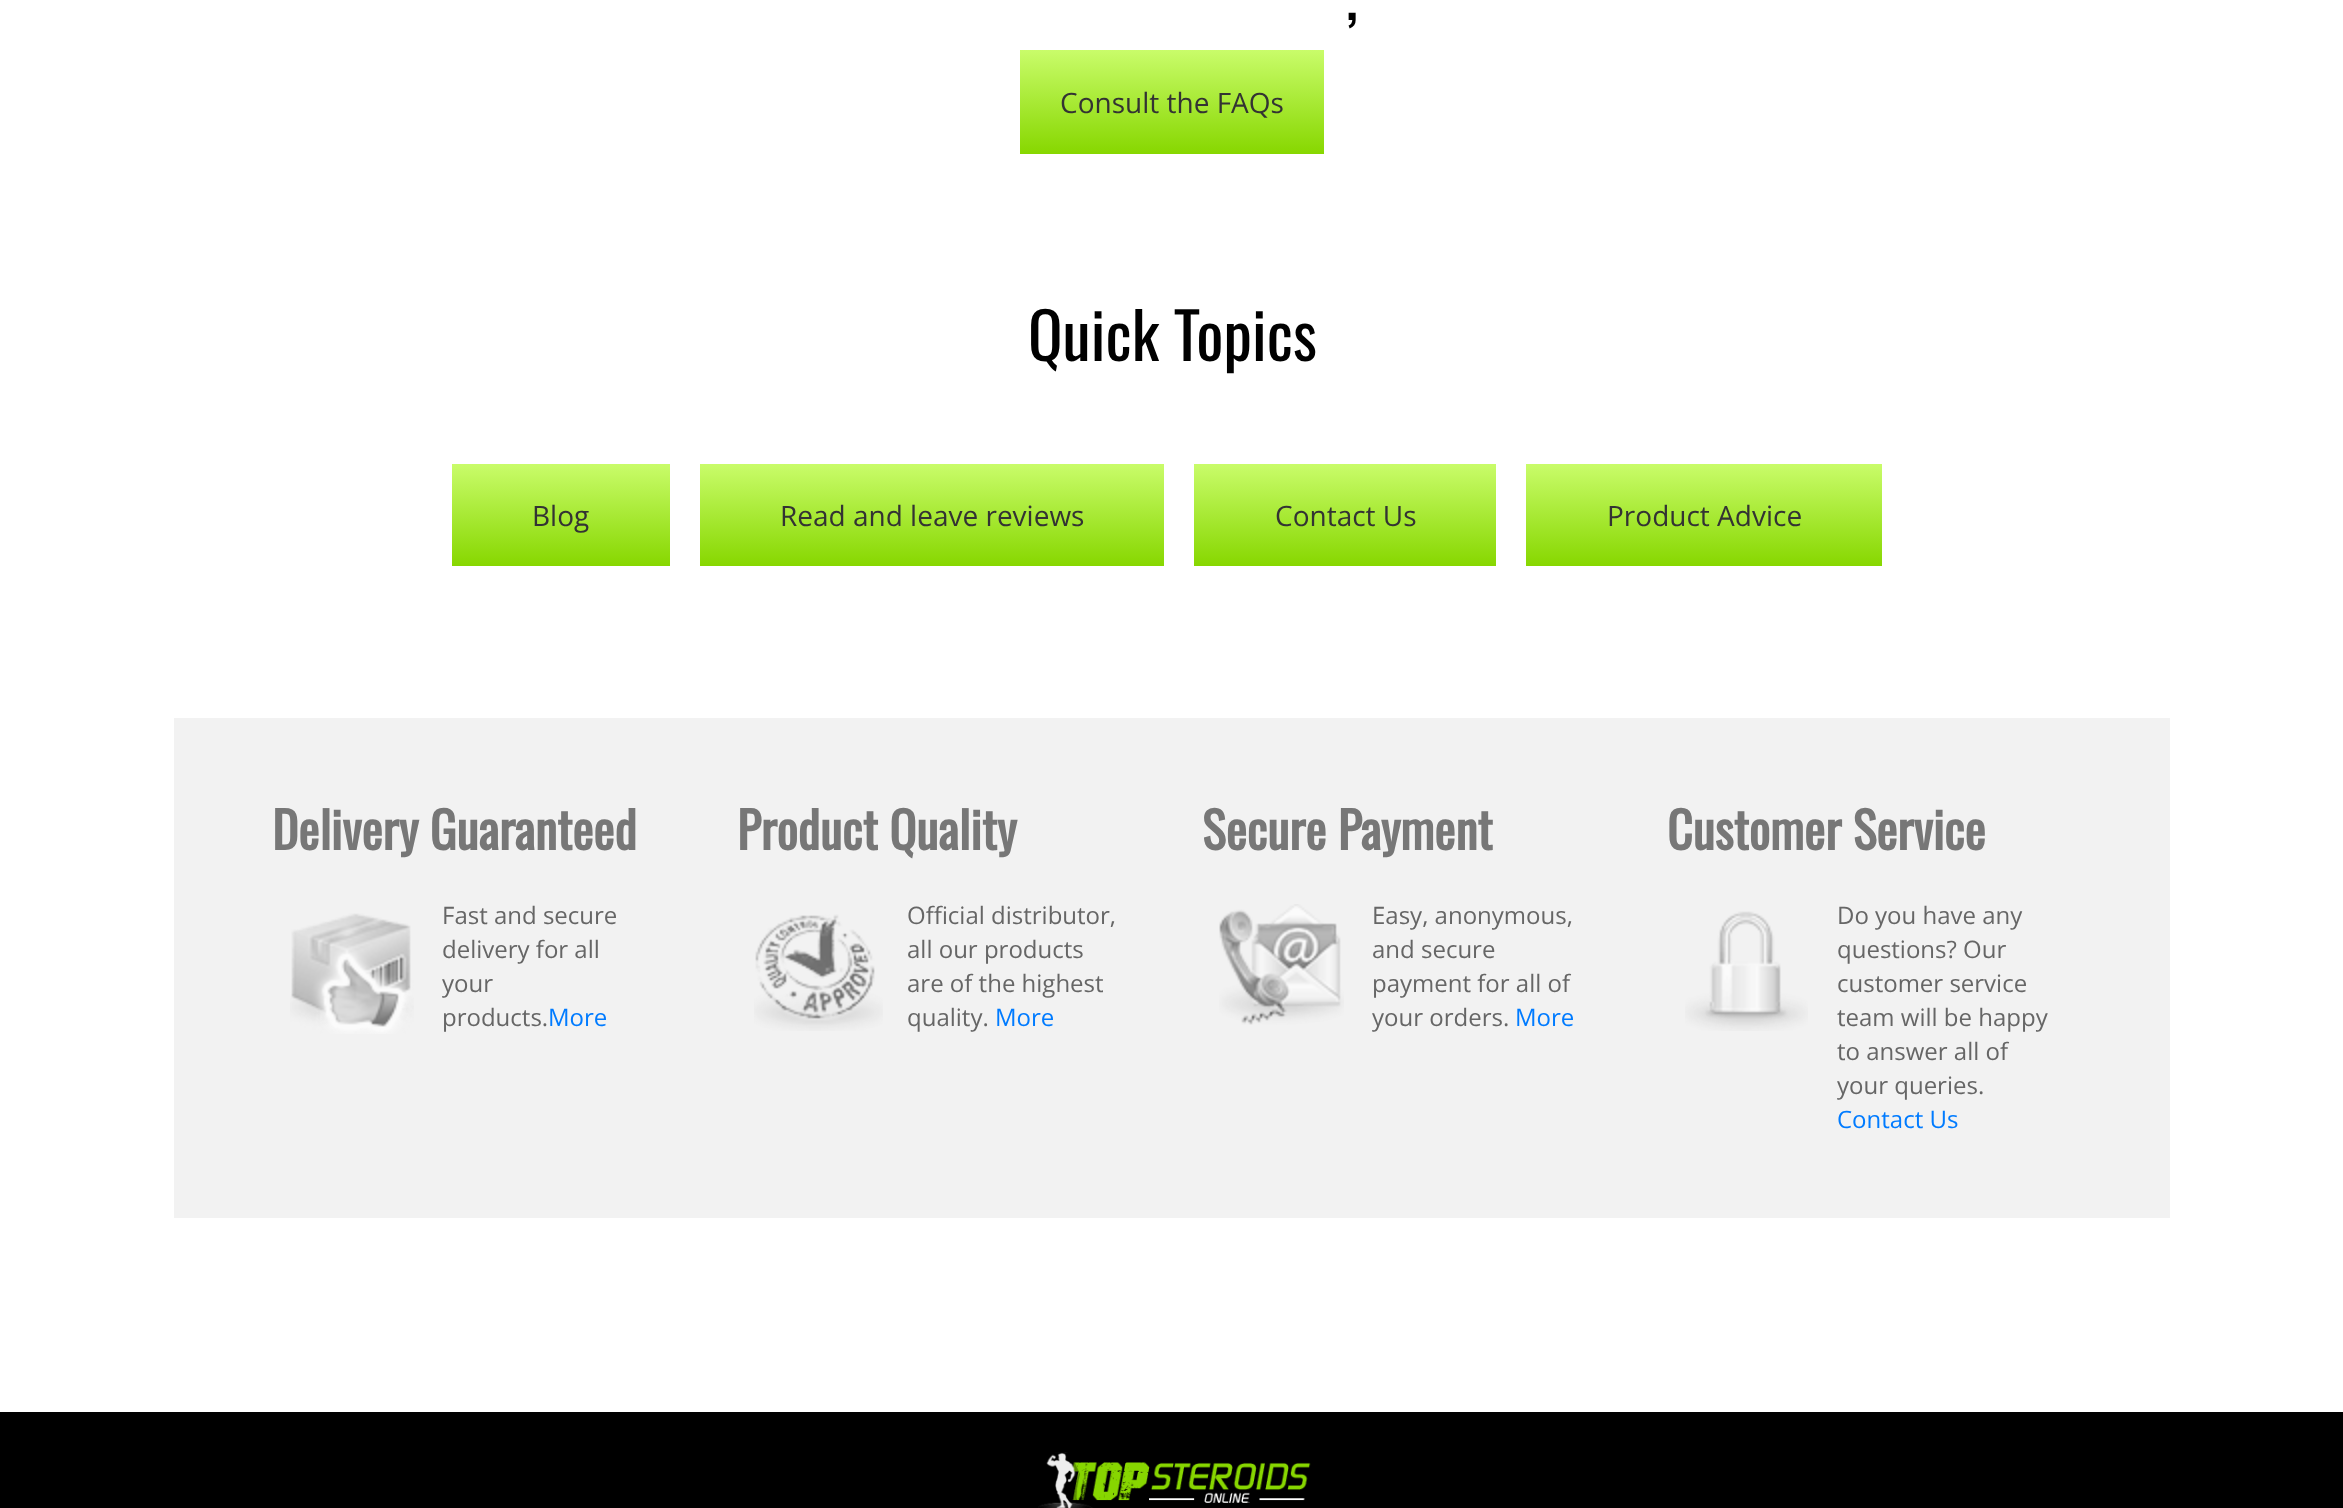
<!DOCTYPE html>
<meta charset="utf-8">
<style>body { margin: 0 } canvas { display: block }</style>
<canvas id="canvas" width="2343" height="1508"></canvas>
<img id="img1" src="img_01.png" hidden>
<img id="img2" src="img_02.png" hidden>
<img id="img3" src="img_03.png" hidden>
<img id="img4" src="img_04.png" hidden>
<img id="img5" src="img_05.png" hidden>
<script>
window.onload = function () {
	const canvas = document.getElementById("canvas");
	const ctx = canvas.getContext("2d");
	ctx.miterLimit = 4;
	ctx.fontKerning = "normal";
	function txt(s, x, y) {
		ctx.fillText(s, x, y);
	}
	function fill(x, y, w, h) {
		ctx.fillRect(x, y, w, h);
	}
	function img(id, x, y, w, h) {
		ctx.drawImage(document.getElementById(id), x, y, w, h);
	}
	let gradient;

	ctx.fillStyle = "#FFFFFF";
	fill(0, 0, 2343, 1508);
	gradient = ctx.createLinearGradient(1172, 50, 1172, 154);
	gradient.addColorStop(0, "#C9FC6A");
	gradient.addColorStop(1, "#87D700");
	ctx.fillStyle = gradient;
	fill(1020, 50, 304, 104);
	gradient = ctx.createLinearGradient(561, 464, 561, 566);
	gradient.addColorStop(0, "#C9FC6A");
	gradient.addColorStop(1, "#87D700");
	ctx.fillStyle = gradient;
	fill(452, 464, 218, 102);
	gradient = ctx.createLinearGradient(932, 464, 932, 566);
	gradient.addColorStop(0, "#C9FC6A");
	gradient.addColorStop(1, "#87D700");
	ctx.fillStyle = gradient;
	fill(700, 464, 464, 102);
	gradient = ctx.createLinearGradient(1345, 464, 1345, 566);
	gradient.addColorStop(0, "#C9FC6A");
	gradient.addColorStop(1, "#87D700");
	ctx.fillStyle = gradient;
	fill(1194, 464, 302, 102);
	gradient = ctx.createLinearGradient(1704, 464, 1704, 566);
	gradient.addColorStop(0, "#C9FC6A");
	gradient.addColorStop(1, "#87D700");
	ctx.fillStyle = gradient;
	fill(1526, 464, 356, 102);
	ctx.fillStyle = "#F2F2F2";
	fill(174, 718, 1996, 500);
	img("img1", 290, 913, 124, 121);
	img("img2", 754, 914, 129, 117);
	img("img3", 1219, 904, 125, 121);
	img("img4", 1685, 911, 123, 120);
	ctx.fillStyle = "#000000";
	fill(0, 1412, 2343, 96);
	img("img5", 1038, 1452, 273, 56);
	ctx.font = "64px Oswald";
	txt(",", 1346, 20);
	ctx.font = "28px Open Sans";
	ctx.fillStyle = "#333333";
	txt("Consult the FAQs", 1060, 113);
	ctx.font = "64px Oswald";
	ctx.fillStyle = "#000000";
	txt("Quick Topics", 1028, 361);
	ctx.font = "28px Open Sans";
	ctx.fillStyle = "#333333";
	txt("Blog", 532, 526);
	txt("Read and leave reviews", 780, 526);
	txt("Contact Us", 1275, 526);
	txt("Product Advice", 1607, 526);
	ctx.font = "bold 50px Oswald";
	ctx.fillStyle = "#777777";
	txt("Delivery Guaranteed", 272, 850);
	ctx.font = "24px Open Sans";
	ctx.fillStyle = "#666666";
	txt("Fast and secure", 442, 924);
	txt("delivery for all", 442, 958);
	txt("your", 442, 992);
	txt("products.", 442, 1026);
	ctx.fillStyle = "#007BFF";
	txt("More", 548, 1026);
	ctx.font = "bold 50px Oswald";
	ctx.fillStyle = "#777777";
	txt("Product Quality", 737, 850);
	ctx.font = "24px Open Sans";
	ctx.fillStyle = "#666666";
	txt("Official distributor,", 907, 924);
	txt("all our products", 907, 958);
	txt("are of the highest", 907, 992);
	txt("quality.", 907, 1026);
	ctx.fillStyle = "#007BFF";
	txt("More", 995, 1026);
	ctx.font = "bold 50px Oswald";
	ctx.fillStyle = "#777777";
	txt("Secure Payment", 1202, 850);
	ctx.font = "24px Open Sans";
	ctx.fillStyle = "#666666";
	txt("Easy, anonymous,", 1372, 924);
	txt("and secure", 1372, 958);
	txt("payment for all of", 1372, 992);
	txt("your orders.", 1372, 1026);
	ctx.fillStyle = "#007BFF";
	txt("More", 1515, 1026);
	ctx.font = "bold 50px Oswald";
	ctx.fillStyle = "#777777";
	txt("Customer Service", 1667, 850);
	ctx.font = "24px Open Sans";
	ctx.fillStyle = "#666666";
	txt("Do you have any", 1837, 924);
	txt("questions? Our", 1837, 958);
	txt("customer service", 1837, 992);
	txt("team will be happy", 1837, 1026);
	txt("to answer all of", 1837, 1060);
	txt("your queries.", 1837, 1094);
	ctx.fillStyle = "#007BFF";
	txt("Contact Us", 1837, 1128);
};
</script>
